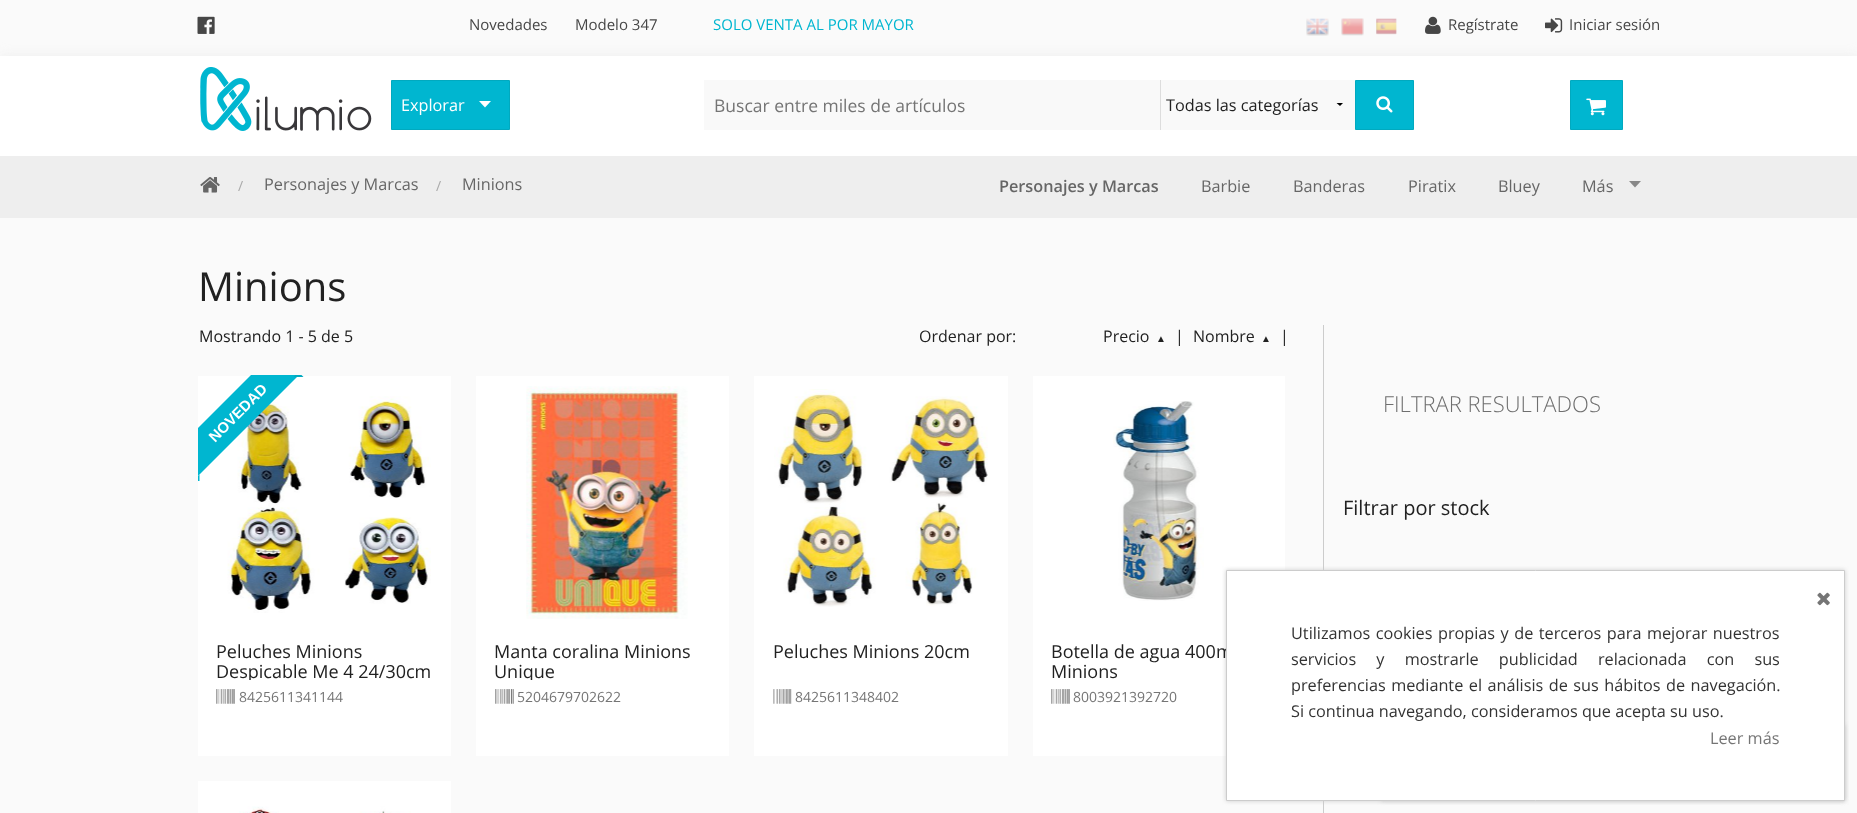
<!DOCTYPE html>
<meta charset="utf-8">
<style>body { margin: 0 } canvas { display: block }</style>
<canvas id="canvas" width="1857" height="813"></canvas>
<img id="img1" src="img_01.png" hidden>
<img id="img2" src="img_02.png" hidden>
<img id="img3" src="img_03.png" hidden>
<img id="img4" src="img_04.png" hidden>
<img id="img5" src="img_05.png" hidden>
<img id="img6" src="img_06.png" hidden>
<img id="img7" src="img_07.png" hidden>
<img id="img8" src="img_08.png" hidden>
<img id="img9" src="img_09.png" hidden>
<img id="img10" src="img_10.png" hidden>
<img id="img11" src="img_11.png" hidden>
<img id="img12" src="img_12.png" hidden>
<img id="img13" src="img_13.png" hidden>
<img id="img14" src="img_14.png" hidden>
<img id="img15" src="img_15.png" hidden>
<img id="img16" src="img_16.png" hidden>
<img id="img17" src="img_17.png" hidden>
<img id="img18" src="img_18.png" hidden>
<img id="img19" src="img_19.png" hidden>
<script>
window.onload = function () {
	const canvas = document.getElementById("canvas");
	const ctx = canvas.getContext("2d");
	ctx.miterLimit = 4;
	ctx.fontKerning = "normal";
	function txt(s, x, y) {
		ctx.fillText(s, x, y);
	}
	function fill(x, y, w, h) {
		ctx.fillRect(x, y, w, h);
	}
	function img(id, x, y, w, h) {
		ctx.drawImage(document.getElementById(id), x, y, w, h);
	}

	ctx.fillStyle = "#FAFAFA";
	fill(0, 0, 1857, 813);
	img("img1", 197, 16, 18, 18);
	img("img2", 1306, 18, 23, 18);
	img("img3", 1341, 18, 23, 18);
	img("img4", 1376, 18, 21, 17);
	img("img5", 1425, 16, 16, 18);
	img("img6", 1545, 18, 18, 15);
	ctx.fillStyle = "#EEEEEE";
	ctx.filter = "blur(6px)";
	ctx.beginPath();
	ctx.rect(0, 56, 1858, 100);
	ctx.fill();
	ctx.filter = "none";
	ctx.fillStyle = "#FFFFFF";
	fill(0, 56, 1857, 100);
	img("img7", 200, 67, 172, 64);
	ctx.fillStyle = "#00B6D0";
	ctx.beginPath();
	ctx.rect(391.5, 80.5, 118, 49);
	ctx.fill();
	ctx.strokeStyle = "#01A9BF";
	ctx.stroke();
	ctx.fillStyle = "#FFFFFF";
	ctx.beginPath();
	ctx.moveTo(479, 101);
	ctx.lineTo(491, 101);
	ctx.lineTo(485, 107.5);
	ctx.closePath();
	ctx.fill();
	ctx.fillStyle = "#F9F9F9";
	fill(704, 80, 456, 50);
	fill(1161, 80, 194, 50);
	ctx.save();
	ctx.beginPath();
	ctx.rect(1325, 103, 30, 4);
	ctx.clip();
	ctx.fillStyle = "#000000";
	ctx.beginPath();
	ctx.moveTo(1343.5, 102.5);
	ctx.lineTo(1340, 106);
	ctx.lineTo(1336, 102.5);
	ctx.closePath();
	ctx.fill();
	ctx.restore();
	ctx.fillStyle = "#DDDDDD";
	fill(1160, 80, 1, 50);
	ctx.fillStyle = "#00B6D0";
	ctx.beginPath();
	ctx.rect(1355.5, 80.5, 58, 49);
	ctx.fill();
	ctx.stroke();
	img("img8", 1376, 96, 17, 17);
	ctx.beginPath();
	ctx.rect(1570.5, 80.5, 52, 49);
	ctx.fill();
	ctx.stroke();
	img("img9", 1586, 98, 20, 18);
	ctx.fillStyle = "#EEEEEE";
	fill(0, 156, 1857, 62);
	img("img10", 200, 177, 20, 16);
	ctx.fillStyle = "#888888";
	ctx.beginPath();
	ctx.moveTo(1629, 181);
	ctx.lineTo(1641, 181);
	ctx.lineTo(1635, 187.5);
	ctx.closePath();
	ctx.fill();
	ctx.fillStyle = "#FFFFFF";
	fill(198, 376, 253, 380);
	img("img11", 227, 391, 204, 222);
	ctx.save();
	ctx.beginPath();
	ctx.rect(198, 375, 106, 106);
	ctx.clip();
	ctx.fillStyle = "#00B6D0";
	ctx.beginPath();
	ctx.moveTo(168, 458);
	ctx.lineTo(283, 343);
	ctx.lineTo(307, 367);
	ctx.lineTo(192, 482);
	ctx.closePath();
	ctx.fill();
	ctx.fillStyle = "#01A9BF";
	ctx.beginPath();
	ctx.moveTo(303.5, 377);
	ctx.lineTo(293.5, 377);
	ctx.lineTo(298.5, 372);
	ctx.closePath();
	ctx.fill();
	ctx.fillStyle = "#00B6D0";
	ctx.beginPath();
	ctx.moveTo(199.5, 474.5);
	ctx.lineTo(199.5, 484.5);
	ctx.lineTo(194.5, 479.5);
	ctx.closePath();
	ctx.fill();
	ctx.restore();
	img("img12", 216, 689, 19, 15);
	fill(476, 376, 253, 380);
	img("img13", 526, 386, 162, 233);
	img("img14", 495, 689, 19, 15);
	fill(754, 376, 254, 380);
	img("img15", 774, 389, 214, 218);
	img("img16", 773, 689, 19, 15);
	fill(1033, 376, 252, 380);
	img("img17", 1113, 401, 91, 200);
	img("img12", 1051, 689, 19, 15);
	fill(198, 781, 253, 32);
	img("img18", 239, 806, 172, 7);
	ctx.fillStyle = "#CCCCCC";
	fill(1323, 325, 1, 488);
	ctx.filter = "blur(2px)";
	ctx.beginPath();
	ctx.rect(1226, 570, 619, 231);
	ctx.fill();
	ctx.filter = "none";
	ctx.filter = "blur(2px)";
	ctx.beginPath();
	ctx.rect(1381, 725, 464, 76);
	ctx.fill();
	ctx.filter = "none";
	ctx.font = "15px Open Sans";
	ctx.fillStyle = "#464646";
	txt("Novedades", 469, 30);
	txt("Modelo 347", 575, 30);
	ctx.fillStyle = "#00B6D0";
	txt("SOLO VENTA AL POR MAYOR", 713, 30);
	ctx.fillStyle = "#464646";
	txt("Regístrate", 1448, 30);
	txt("Iniciar sesión", 1569, 30);
	ctx.font = "16.25px Open Sans";
	ctx.fillStyle = "#FFFFFF";
	txt("Explorar", 401, 111);
	ctx.font = "17.5px Open Sans";
	ctx.fillStyle = "#757575";
	txt("Buscar entre miles de artículos", 714, 112);
	ctx.font = "16.25px Open Sans";
	ctx.fillStyle = "#212121";
	txt("Todas las categorías", 1166, 111);
	ctx.font = "14px Open Sans";
	ctx.fillStyle = "#AAAAAA";
	txt("/", 238, 191);
	ctx.font = "16.25px Open Sans";
	ctx.fillStyle = "#666666";
	txt("Personajes y Marcas", 264, 190);
	ctx.font = "14px Open Sans";
	ctx.fillStyle = "#AAAAAA";
	txt("/", 436, 191);
	ctx.font = "16.25px Open Sans";
	ctx.fillStyle = "#666666";
	txt("Minions", 462, 190);
	ctx.font = "600 16.25px Open Sans";
	txt("Personajes y Marcas", 999, 192);
	ctx.font = "16.25px Open Sans";
	txt("Barbie", 1201, 192);
	txt("Banderas", 1293, 192);
	txt("Piratix", 1408, 192);
	txt("Bluey", 1498, 192);
	txt("Más", 1582, 192);
	ctx.font = "40px Open Sans";
	ctx.fillStyle = "#212121";
	txt("Minions", 198, 301);
	ctx.font = "16px Open Sans";
	txt("Mostrando 1 - 5 de 5", 199, 342);
	txt("Ordenar por:", 919, 342);
	txt("Precio", 1103, 342);
	ctx.font = "10px Liberation Sans";
	txt("▲", 1156, 342);
	ctx.font = "16px Open Sans";
	txt("|", 1175, 342);
	txt("Nombre", 1193, 342);
	ctx.font = "10px Liberation Sans";
	txt("▲", 1261, 342);
	ctx.font = "16px Open Sans";
	txt("|", 1280, 342);
	ctx.font = "bold 15px Liberation Sans";
	ctx.fillStyle = "#FFFFFF";
	ctx.save();
	ctx.translate(215, 443);
	ctx.rotate(-45 * Math.PI / 180);
	ctx.fillText("NOVEDAD", 0, 0);
	ctx.restore();
	ctx.font = "18px Open Sans";
	ctx.fillStyle = "#212121";
	txt("Peluches Minions", 216, 658);
	ctx.save();
	ctx.beginPath();
	ctx.rect(216, 641, 217, 39);
	ctx.clip();
	txt("Despicable Me 4 24/30cm", 216, 678);
	ctx.restore();
	ctx.font = "14px Open Sans";
	ctx.fillStyle = "#757575";
	txt("8425611341144", 239, 702);
	ctx.font = "18px Open Sans";
	ctx.fillStyle = "#212121";
	txt("Manta coralina Minions", 494, 658);
	ctx.save();
	ctx.beginPath();
	ctx.rect(495, 641, 215, 39);
	ctx.clip();
	txt("Unique", 494, 678);
	ctx.restore();
	ctx.font = "14px Open Sans";
	ctx.fillStyle = "#757575";
	txt("5204679702622", 517, 702);
	ctx.font = "18px Open Sans";
	ctx.fillStyle = "#212121";
	txt("Peluches Minions 20cm", 773, 658);
	ctx.font = "14px Open Sans";
	ctx.fillStyle = "#757575";
	txt("8425611348402", 795, 702);
	ctx.font = "18px Open Sans";
	ctx.fillStyle = "#212121";
	txt("Botella de agua 400m", 1051, 658);
	txt("Minions", 1051, 678);
	ctx.font = "14px Open Sans";
	ctx.fillStyle = "#757575";
	txt("8003921392720", 1073, 702);
	ctx.font = "300 22px Open Sans";
	ctx.fillStyle = "#6F6F6F";
	txt("FILTRAR RESULTADOS", 1383, 412);
	ctx.font = "20px Open Sans";
	ctx.fillStyle = "#212121";
	txt("Filtrar por stock", 1343, 515);
	ctx.fillStyle = "#FFFFFF";
	ctx.beginPath();
	ctx.rect(1226.5, 570.5, 618, 230);
	ctx.fill();
	ctx.strokeStyle = "#CCCCCC";
	ctx.stroke();
	img("img19", 1817, 592, 13, 14);
	ctx.wordSpacing = "1.25px";
	ctx.font = "16.25px Open Sans";
	ctx.fillStyle = "#333333";
	txt("Utilizamos cookies propias y de terceros para mejorar nuestros", 1291, 639);
	ctx.wordSpacing = "16px";
	txt("servicios y mostrarle publicidad relacionada con sus", 1291, 665);
	ctx.wordSpacing = "1.25px";
	txt("preferencias mediante el análisis de sus hábitos de navegación.", 1291, 691);
	ctx.wordSpacing = "0px";
	txt("Si continua navegando, consideramos que acepta su uso.", 1291, 717);
	ctx.fillStyle = "#757575";
	txt("Leer más", 1710, 744);
};
</script>
